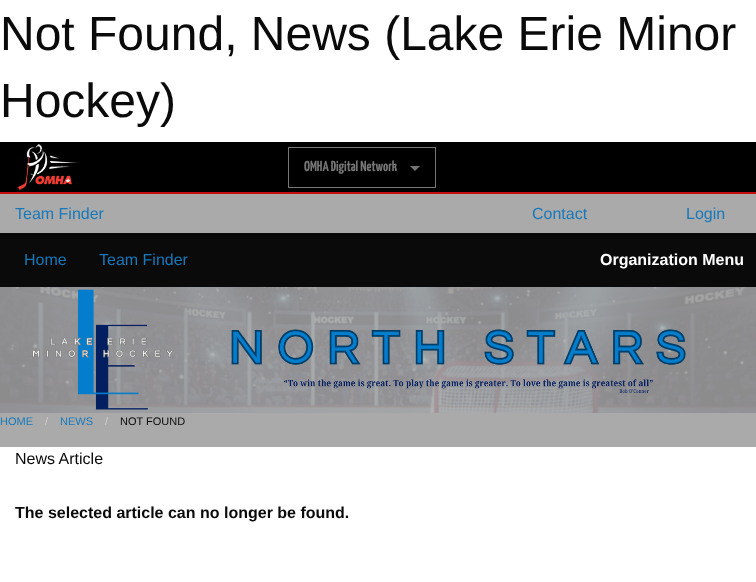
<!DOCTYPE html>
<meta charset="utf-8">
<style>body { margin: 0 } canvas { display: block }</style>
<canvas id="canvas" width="756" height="582"></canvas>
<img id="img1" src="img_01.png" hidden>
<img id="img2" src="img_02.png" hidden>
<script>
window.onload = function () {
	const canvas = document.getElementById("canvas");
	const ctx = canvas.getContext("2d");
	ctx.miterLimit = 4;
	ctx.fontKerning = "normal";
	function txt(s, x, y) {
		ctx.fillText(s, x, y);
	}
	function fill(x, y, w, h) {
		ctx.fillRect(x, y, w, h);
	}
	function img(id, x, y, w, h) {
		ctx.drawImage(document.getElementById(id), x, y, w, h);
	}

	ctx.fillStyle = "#FFFFFF";
	fill(0, 0, 756, 582);
	ctx.fillStyle = "#000000";
	fill(0, 142, 756, 50);
	ctx.fillStyle = "#C60C0C";
	fill(0, 192, 756, 2);
	img("img1", 17, 144, 62, 46);
	ctx.strokeStyle = "#767676";
	ctx.strokeRect(288.5, 147.5, 147, 40);
	ctx.fillStyle = "#767676";
	ctx.beginPath();
	ctx.moveTo(410, 166);
	ctx.lineTo(420, 166);
	ctx.lineTo(415, 171);
	ctx.closePath();
	ctx.fill();
	ctx.fillStyle = "#AAAAAA";
	fill(0, 194, 756, 253);
	ctx.fillStyle = "#0A0A0A";
	fill(0, 233, 756, 54);
	img("img2", 0, 287, 756, 126);
	ctx.font = "48px Liberation Sans";
	txt("Not Found, News (Lake Erie Minor", 0, 50);
	txt("Hockey)", 0, 117);
	ctx.font = "200 14.5px Yanone Kaffeesatz";
	ctx.fillStyle = "#767676";
	txt("OMHA Digital Network", 304, 171);
	ctx.font = "16px Liberation Sans";
	ctx.fillStyle = "#1779BA";
	txt("Team Finder", 15, 219);
	txt("Contact", 532, 219);
	txt("Login", 686, 219);
	txt("Home", 24, 265);
	txt("Team Finder", 99, 265);
	ctx.font = "bold 16px Liberation Sans";
	ctx.fillStyle = "#FEFEFE";
	txt("Organization Menu", 600, 265);
	ctx.font = "11px Liberation Sans";
	ctx.fillStyle = "#1779BA";
	txt("HOME", 0, 425);
	ctx.fillStyle = "#CACACA";
	txt("/", 45, 425);
	ctx.fillStyle = "#1779BA";
	txt("NEWS", 60, 425);
	ctx.fillStyle = "#CACACA";
	txt("/", 105, 425);
	ctx.fillStyle = "#0A0A0A";
	txt("NOT FOUND", 120, 425);
	ctx.font = "16px Liberation Sans";
	txt("News Article", 15, 464);
	ctx.font = "bold 16px Liberation Sans";
	txt("The selected article can no longer be found.", 15, 518);
};
</script>
